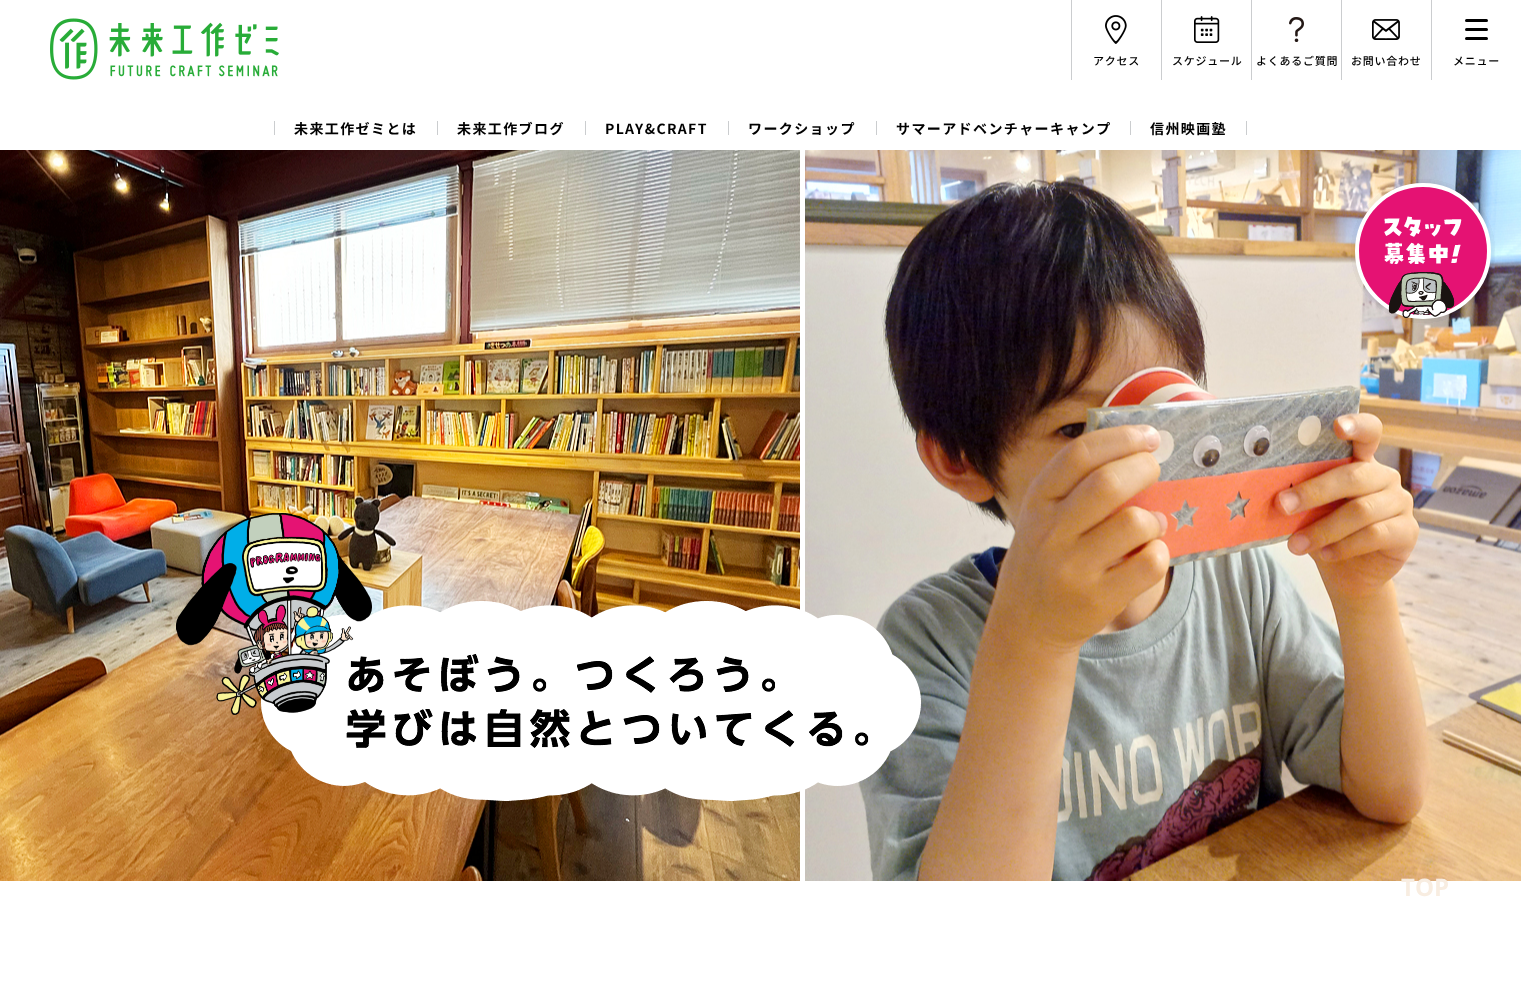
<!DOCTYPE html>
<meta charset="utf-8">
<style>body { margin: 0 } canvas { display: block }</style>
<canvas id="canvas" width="1521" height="988"></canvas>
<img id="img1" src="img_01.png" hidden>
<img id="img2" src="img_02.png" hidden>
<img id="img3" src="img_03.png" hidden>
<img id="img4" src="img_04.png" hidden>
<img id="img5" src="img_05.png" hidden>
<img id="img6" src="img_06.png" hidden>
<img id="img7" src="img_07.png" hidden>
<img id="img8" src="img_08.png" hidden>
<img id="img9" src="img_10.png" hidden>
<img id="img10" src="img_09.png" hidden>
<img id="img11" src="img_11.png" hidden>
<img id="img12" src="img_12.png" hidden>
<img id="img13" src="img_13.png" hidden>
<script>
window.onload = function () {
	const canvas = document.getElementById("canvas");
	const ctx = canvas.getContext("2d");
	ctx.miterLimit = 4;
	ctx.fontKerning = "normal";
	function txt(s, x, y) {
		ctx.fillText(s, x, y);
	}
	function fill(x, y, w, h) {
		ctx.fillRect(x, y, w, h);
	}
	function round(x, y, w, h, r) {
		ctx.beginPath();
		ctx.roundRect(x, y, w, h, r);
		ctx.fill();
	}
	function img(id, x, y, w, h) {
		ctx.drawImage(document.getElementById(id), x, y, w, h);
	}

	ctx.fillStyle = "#FFFFFF";
	fill(0, 0, 1521, 988);
	img("img1", 50, 18, 229, 62);
	ctx.fillStyle = "#CBCDCF";
	fill(1071, 0, 1, 80);
	img("img2", 1105, 15, 22, 29);
	fill(1161, 0, 1, 80);
	img("img3", 1194, 16, 26, 27);
	fill(1251, 0, 1, 80);
	img("img4", 1289, 17, 15, 25);
	fill(1341, 0, 1, 80);
	img("img5", 1372, 19, 28, 21);
	fill(1431, 0, 1, 80);
	ctx.fillStyle = "#000000";
	round(1465, 19, 23, 3, 1.5);
	round(1465, 28, 23, 3, 1.5);
	round(1465, 37, 23, 3, 1.5);
	ctx.fillStyle = "#CBCDCF";
	fill(274, 121, 1, 14);
	fill(437, 121, 1, 14);
	fill(585, 121, 1, 14);
	fill(728, 121, 1, 14);
	fill(876, 121, 1, 14);
	fill(1130, 121, 1, 14);
	fill(1246, 121, 1, 14);
	img("img6", 0, 150, 800, 731);
	img("img7", 805, 150, 716, 731);
	img("img8", 1351, 179, 144, 144);
	img("img9", 261, 601, 660, 200);
	img("img10", 176, 513, 196, 202);
	img("img11", 348, 654, 199, 39);
	img("img12", 577, 656, 198, 37);
	img("img13", 346, 709, 523, 39);
	ctx.letterSpacing = "0.75px";
	ctx.font = "500 11px Noto Sans JP";
	ctx.fillStyle = "#000000";
	txt("アクセス", 1093, 65);
	txt("スケジュール", 1172, 65);
	txt("よくあるご質問", 1256, 65);
	txt("お問い合わせ", 1351, 65);
	txt("メニュー", 1453, 65);
	ctx.letterSpacing = "1.4px";
	ctx.font = "bold 14px Noto Sans JP";
	txt("未来工作ゼミとは", 294, 134);
	txt("未来工作ブログ", 457, 134);
	txt("PLAY&CRAFT", 605, 134);
	txt("ワークショップ", 748, 134);
	txt("サマーアドベンチャーキャンプ", 896, 134);
	txt("信州映画塾", 1150, 134);
	ctx.letterSpacing = "0px";
	ctx.font = "bold 24px Open Sans";
	ctx.fillStyle = "#F8EDE1";
	txt("TOP", 1401, 896);
};
</script>
